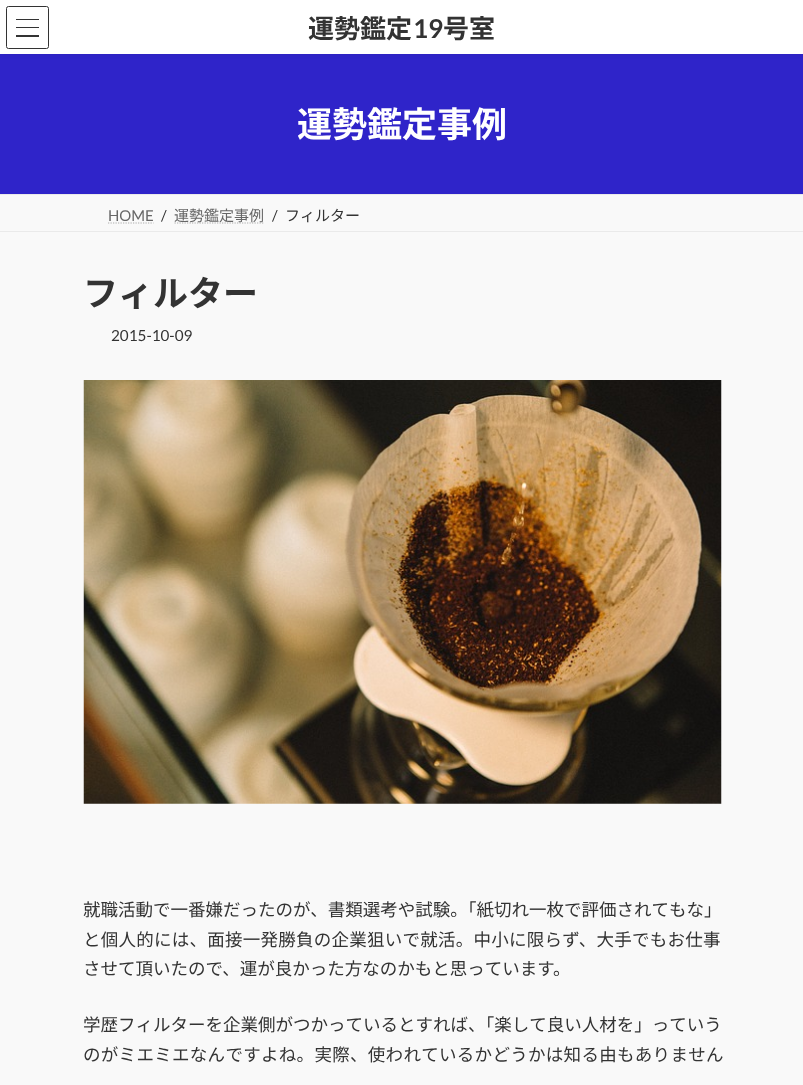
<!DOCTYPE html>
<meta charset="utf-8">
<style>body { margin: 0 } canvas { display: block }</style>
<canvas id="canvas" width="803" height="1085"></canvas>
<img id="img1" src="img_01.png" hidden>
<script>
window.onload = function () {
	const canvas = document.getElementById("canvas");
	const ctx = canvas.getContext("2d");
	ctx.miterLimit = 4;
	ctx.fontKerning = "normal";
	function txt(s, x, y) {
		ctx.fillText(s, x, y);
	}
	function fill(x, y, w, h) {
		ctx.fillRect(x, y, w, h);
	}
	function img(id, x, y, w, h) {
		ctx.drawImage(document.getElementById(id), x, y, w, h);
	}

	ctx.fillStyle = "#F9F9F9";
	fill(0, 0, 803, 1085);
	ctx.fillStyle = "#2F24C9";
	fill(0, 54, 803, 140);
	ctx.fillStyle = "rgba(0, 0, 0, 0.05)";
	ctx.filter = "blur(2px)";
	ctx.beginPath();
	ctx.rect(0, 1, 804, 54);
	ctx.fill();
	ctx.filter = "none";
	ctx.fillStyle = "#FFFFFF";
	fill(0, 0, 803, 54);
	ctx.fillStyle = "#333333";
	fill(16, 19, 23, 1);
	fill(16, 27, 23, 1);
	fill(16, 35, 23, 2);
	ctx.beginPath();
	ctx.roundRect(6.5, 6.5, 42, 42, 2);
	ctx.strokeStyle = "#333333";
	ctx.stroke();
	ctx.fillStyle = "#EAEAEA";
	fill(0, 194, 803, 1);
	fill(0, 231, 803, 1);
	ctx.beginPath();
	ctx.moveTo(108, 223);
	ctx.lineTo(153.5, 223);
	ctx.strokeStyle = "#AEAEAE";
	ctx.lineWidth = 1.2;
	ctx.setLineDash([1.25, 1.25]);
	ctx.stroke();
	ctx.beginPath();
	ctx.moveTo(174.5, 223);
	ctx.lineTo(264.5, 223);
	ctx.stroke();
	img("img1", 83, 380, 639, 424);
	ctx.font = "bold 26px Noto Sans JP";
	ctx.fillStyle = "#333333";
	txt("運勢鑑定", 308, 38);
	ctx.font = "bold 26px Lato";
	txt("19", 413, 38);
	ctx.font = "bold 26px Noto Sans JP";
	txt("号室", 443, 38);
	ctx.font = "bold 35px Noto Sans JP";
	ctx.fillStyle = "#FFFFFF";
	txt("運勢鑑定事例", 297, 137);
	ctx.font = "15px Lato";
	ctx.fillStyle = "#666666";
	txt("HOME", 108, 221);
	ctx.fillStyle = "#333333";
	txt("/", 161, 221);
	ctx.font = "15px Noto Sans JP";
	ctx.fillStyle = "#666666";
	txt("運勢鑑定事例", 174, 221);
	ctx.font = "15px Lato";
	ctx.fillStyle = "#333333";
	txt("/", 272, 221);
	ctx.font = "15px Noto Sans JP";
	txt("フィルター", 285, 221);
	ctx.font = "bold 35px Noto Sans JP";
	txt("フィルター", 83, 306);
	ctx.font = "15.25px Lato";
	txt("2015-10-09", 111, 341);
	ctx.font = "17.5px Noto Sans JP";
	txt("就職活動で一番嫌だったのが、書類選考や試験。「紙切れ一枚で評価されてもな」", 83, 916);
	ctx.letterSpacing = "0.25px";
	txt("と個人的には、面接一発勝負の企業狙いで就活。中小に限らず、大手でもお仕事", 83, 946);
	ctx.letterSpacing = "0px";
	txt("させて頂いたので、運が良かった方なのかもと思っています。", 83, 975);
	txt("学歴フィルターを企業側がつかっているとすれば、「楽して良い人材を」っていう", 83, 1031);
	ctx.letterSpacing = "0.3px";
	txt("のがミエミエなんですよね。実際、使われているかどうかは知る由もありません", 83, 1061);
};
</script>
